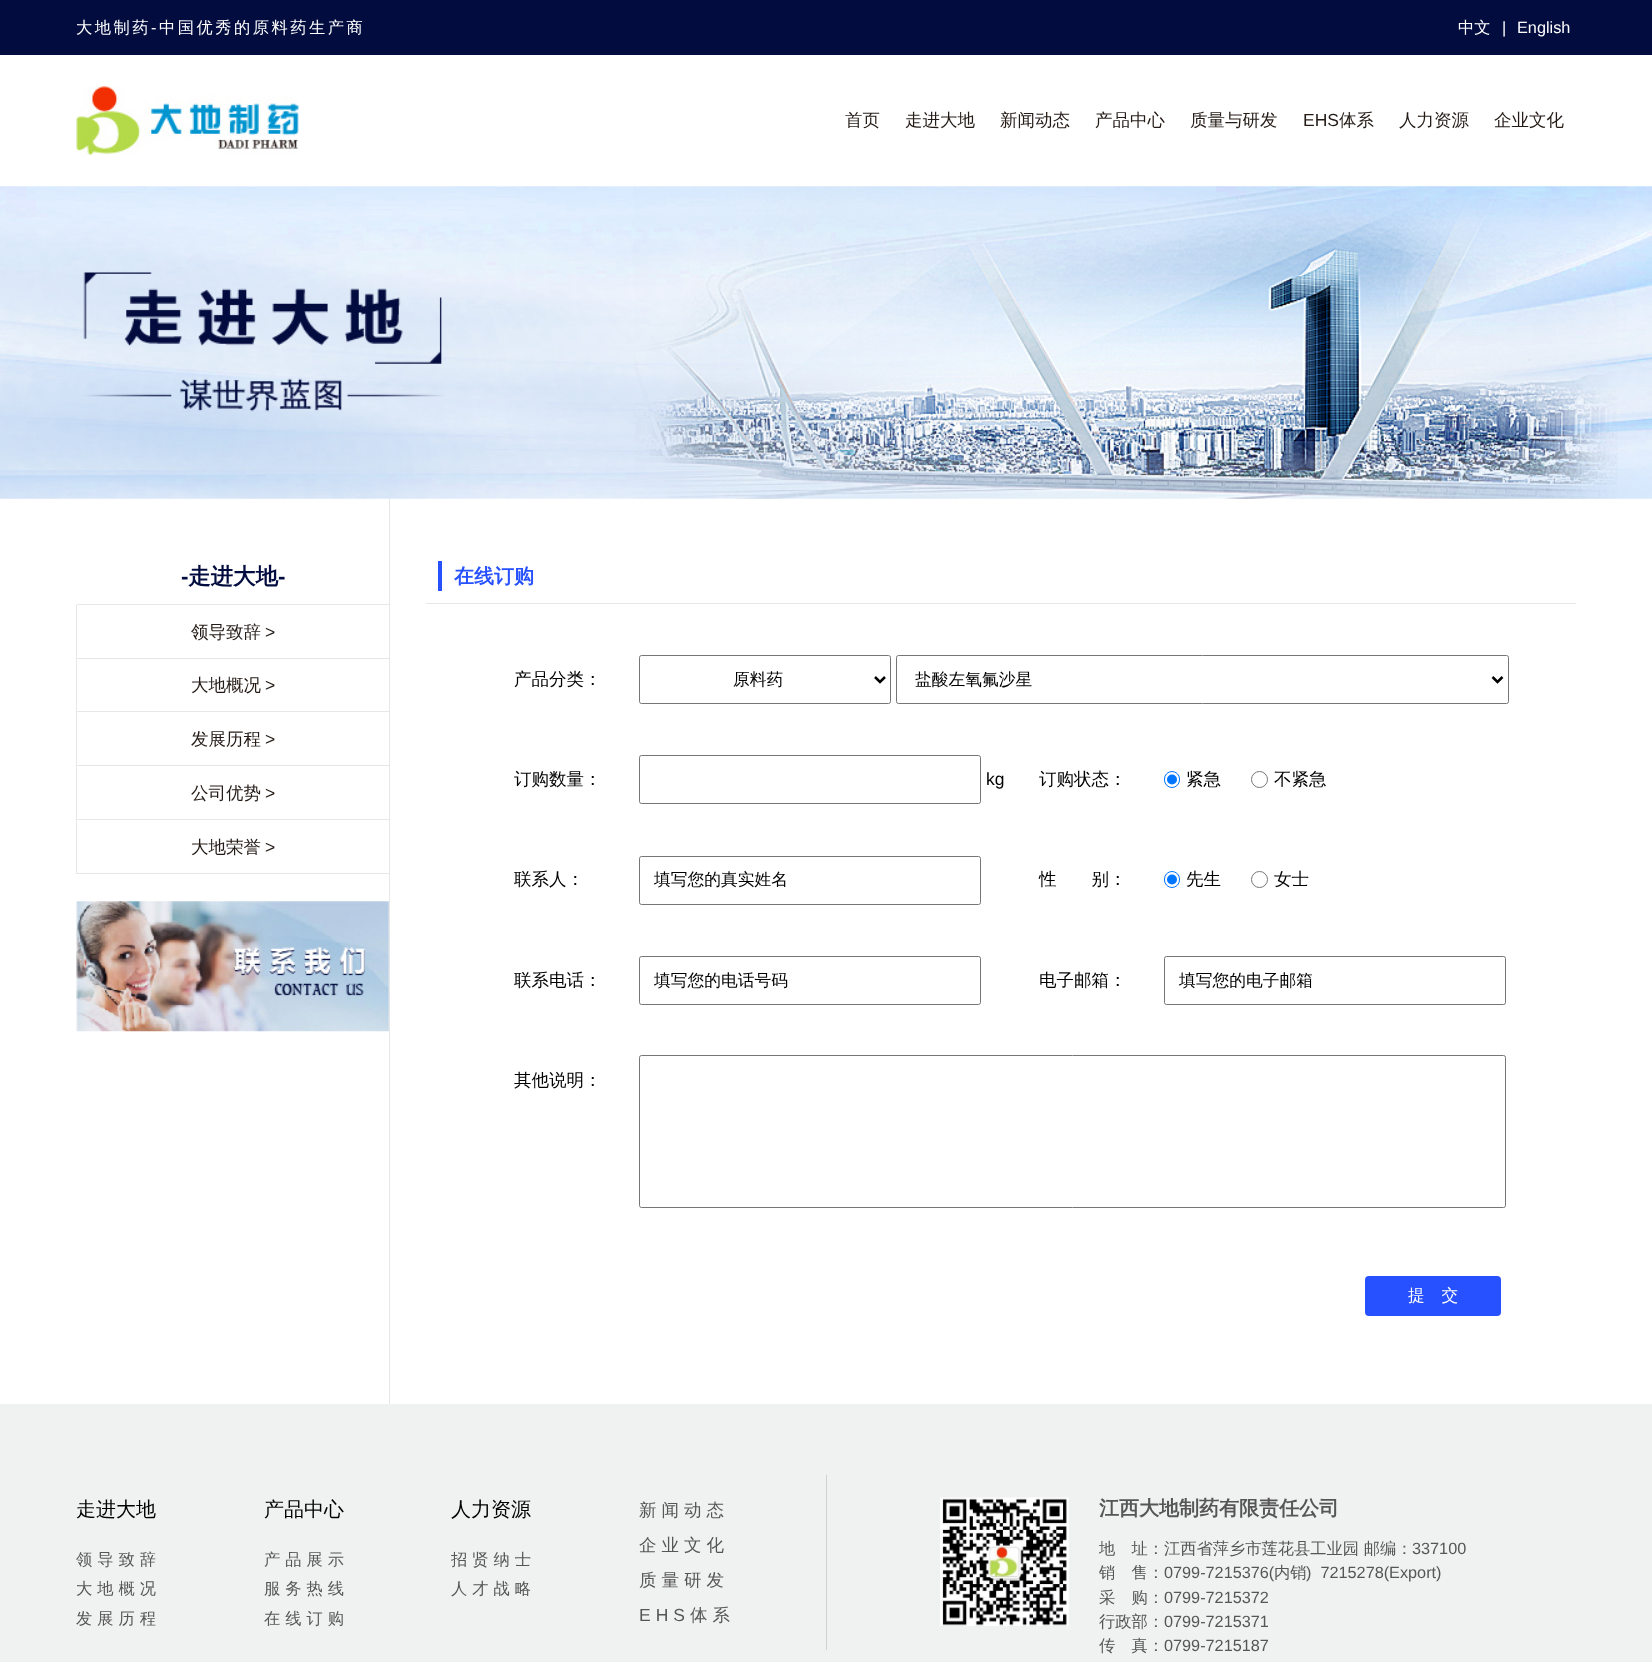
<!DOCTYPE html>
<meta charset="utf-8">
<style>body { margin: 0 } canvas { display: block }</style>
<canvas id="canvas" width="1652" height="1662"></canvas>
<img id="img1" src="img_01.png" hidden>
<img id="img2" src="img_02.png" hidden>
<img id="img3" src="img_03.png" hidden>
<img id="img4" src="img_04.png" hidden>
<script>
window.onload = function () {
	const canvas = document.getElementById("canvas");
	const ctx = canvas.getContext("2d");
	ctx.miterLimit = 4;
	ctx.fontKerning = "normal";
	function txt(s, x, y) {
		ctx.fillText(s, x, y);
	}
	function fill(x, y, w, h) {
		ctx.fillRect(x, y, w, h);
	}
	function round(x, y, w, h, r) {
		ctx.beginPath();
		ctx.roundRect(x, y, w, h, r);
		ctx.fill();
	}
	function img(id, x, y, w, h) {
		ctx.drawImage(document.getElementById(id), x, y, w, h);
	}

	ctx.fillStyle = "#FFFFFF";
	fill(0, 0, 1652, 1662);
	ctx.fillStyle = "#020C3F";
	fill(0, 0, 1652, 55);
	img("img1", 76, 86, 223, 69);
	img("img2", 0, 186, 1652, 313);
	ctx.fillStyle = "#E7E7E7";
	fill(76, 604, 313, 1);
	ctx.fillStyle = "#FFFFFF";
	fill(76, 604, 1, 1);
	ctx.fillStyle = "#E7E7E7";
	fill(76, 658, 313, 1);
	fill(76, 605, 1, 54);
	fill(76, 711, 313, 1);
	fill(76, 659, 1, 54);
	fill(76, 765, 313, 1);
	fill(76, 713, 1, 53);
	fill(76, 819, 313, 1);
	fill(76, 766, 1, 54);
	fill(76, 873, 313, 1);
	fill(76, 820, 1, 54);
	img("img3", 76, 901, 313, 131);
	fill(389, 499, 1, 905);
	fill(426, 603, 1150, 1);
	ctx.fillStyle = "#2751FF";
	fill(438, 561, 4, 30);
	ctx.beginPath();
	ctx.roundRect(639.5, 655.5, 251, 48, 2);
	ctx.strokeStyle = "#767676";
	ctx.stroke();
	ctx.beginPath();
	ctx.moveTo(875, 677);
	ctx.lineTo(880, 682);
	ctx.lineTo(885, 677);
	ctx.strokeStyle = "#000000";
	ctx.lineWidth = 2.5;
	ctx.stroke();
	ctx.beginPath();
	ctx.roundRect(896.5, 655.5, 612, 48, 2);
	ctx.strokeStyle = "#767676";
	ctx.lineWidth = 1;
	ctx.stroke();
	ctx.beginPath();
	ctx.moveTo(1492.5, 677);
	ctx.lineTo(1497.5, 682);
	ctx.lineTo(1502.5, 677);
	ctx.strokeStyle = "#000000";
	ctx.lineWidth = 2.5;
	ctx.stroke();
	ctx.beginPath();
	ctx.roundRect(639.5, 755.5, 341, 48, 2);
	ctx.strokeStyle = "#767676";
	ctx.lineWidth = 1;
	ctx.stroke();
	ctx.beginPath();
	ctx.roundRect(1164.5, 771.5, 15, 16, 7.5);
	ctx.strokeStyle = "#0075FF";
	ctx.stroke();
	ctx.fillStyle = "#0075FF";
	ctx.beginPath();
	ctx.arc(1172, 779.5, 5, 0, Math.PI * 2);
	ctx.fill();
	ctx.beginPath();
	ctx.arc(1259.5, 779.5, 8, 0, Math.PI * 2);
	ctx.strokeStyle = "#767676";
	ctx.stroke();
	ctx.beginPath();
	ctx.roundRect(639.5, 856.5, 341, 48, 2);
	ctx.stroke();
	ctx.beginPath();
	ctx.roundRect(1164.5, 871.5, 15, 16, 7.5);
	ctx.strokeStyle = "#0075FF";
	ctx.stroke();
	ctx.beginPath();
	ctx.arc(1172, 879.5, 5, 0, Math.PI * 2);
	ctx.fill();
	ctx.beginPath();
	ctx.arc(1259.5, 879.5, 8, 0, Math.PI * 2);
	ctx.strokeStyle = "#767676";
	ctx.stroke();
	ctx.beginPath();
	ctx.roundRect(639.5, 956.5, 341, 48, 2);
	ctx.stroke();
	ctx.beginPath();
	ctx.roundRect(1164.5, 956.5, 341, 48, 2);
	ctx.stroke();
	ctx.beginPath();
	ctx.roundRect(639.5, 1055.5, 866, 152, 2);
	ctx.stroke();
	ctx.fillStyle = "#2751FF";
	round(1365, 1276, 136, 40, 4);
	ctx.fillStyle = "#F0F2F1";
	fill(0, 1404, 1652, 258);
	ctx.fillStyle = "#D0D2D1";
	fill(826, 1475, 1, 175);
	img("img4", 940, 1497, 129, 129);
	ctx.letterSpacing = "2.5px";
	ctx.font = "500 16.25px WenQuanYi Zen Hei";
	ctx.fillStyle = "#FFFFFF";
	txt("大地制药", 76, 33);
	ctx.font = "16.25px Liberation Sans";
	txt("-", 151, 33);
	ctx.font = "500 16.25px WenQuanYi Zen Hei";
	txt("中国优秀的原料药生产商", 159, 33);
	ctx.letterSpacing = "0px";
	txt("中文", 1458, 33);
	ctx.font = "16.25px Liberation Sans";
	txt("|", 1502, 33);
	txt("English", 1517, 33);
	ctx.font = "500 17.5px WenQuanYi Zen Hei";
	ctx.fillStyle = "#231A15";
	txt("首页", 845, 126);
	txt("走进大地", 905, 126);
	txt("新闻动态", 1000, 126);
	txt("产品中心", 1095, 126);
	txt("质量与研发", 1190, 126);
	ctx.font = "17.5px Liberation Sans";
	txt("EHS", 1303, 126);
	ctx.font = "500 17.5px WenQuanYi Zen Hei";
	txt("体系", 1339, 126);
	txt("人力资源", 1399, 126);
	txt("企业文化", 1494, 126);
	ctx.font = "bold 22.5px Liberation Sans";
	ctx.fillStyle = "#020C3F";
	txt("-", 181, 584);
	ctx.font = "bold 22.5px WenQuanYi Zen Hei";
	txt("走进大地", 188, 584);
	ctx.font = "bold 22.5px Liberation Sans";
	txt("-", 278, 584);
	ctx.font = "500 17.5px WenQuanYi Zen Hei";
	ctx.fillStyle = "#231A15";
	txt("领导致辞", 191, 638);
	ctx.font = "17.5px Liberation Sans";
	txt(">", 265, 638);
	ctx.font = "500 17.5px WenQuanYi Zen Hei";
	txt("大地概况", 191, 691);
	ctx.font = "17.5px Liberation Sans";
	txt(">", 265, 691);
	ctx.font = "500 17.5px WenQuanYi Zen Hei";
	txt("发展历程", 191, 745);
	ctx.font = "17.5px Liberation Sans";
	txt(">", 265, 745);
	ctx.font = "500 17.5px WenQuanYi Zen Hei";
	txt("公司优势", 191, 799);
	ctx.font = "17.5px Liberation Sans";
	txt(">", 265, 799);
	ctx.font = "500 17.5px WenQuanYi Zen Hei";
	txt("大地荣誉", 191, 853);
	ctx.font = "17.5px Liberation Sans";
	txt(">", 265, 853);
	ctx.font = "bold 20px WenQuanYi Zen Hei";
	ctx.fillStyle = "#2751FF";
	txt("在线订购", 454, 583);
	ctx.font = "500 17.5px WenQuanYi Zen Hei";
	ctx.fillStyle = "#000000";
	txt("产品分类：", 514, 685);
	ctx.font = "500 16.75px WenQuanYi Zen Hei";
	txt("原料药", 733, 685);
	txt("盐酸左氧氟沙星", 915, 685);
	ctx.font = "500 17.5px WenQuanYi Zen Hei";
	txt("订购数量：", 514, 785);
	ctx.font = "17.5px Liberation Sans";
	txt("kg", 986, 785);
	ctx.font = "500 17.5px WenQuanYi Zen Hei";
	txt("订购状态：", 1039, 785);
	txt("紧急", 1186, 785);
	txt("不紧急", 1274, 785);
	txt("联系人：", 514, 885);
	ctx.font = "500 16.75px WenQuanYi Zen Hei";
	txt("填写您的真实姓名", 654, 885);
	ctx.font = "500 17.5px WenQuanYi Zen Hei";
	txt("性　　别：", 1039, 885);
	txt("先生", 1186, 885);
	txt("女士", 1274, 885);
	txt("联系电话：", 514, 986);
	ctx.font = "500 16.75px WenQuanYi Zen Hei";
	txt("填写您的电话号码", 654, 986);
	ctx.font = "500 17.5px WenQuanYi Zen Hei";
	txt("电子邮箱：", 1039, 986);
	ctx.font = "500 16.75px WenQuanYi Zen Hei";
	txt("填写您的电子邮箱", 1179, 986);
	ctx.font = "500 17.5px WenQuanYi Zen Hei";
	txt("其他说明：", 514, 1086);
	ctx.font = "500 16.75px WenQuanYi Zen Hei";
	ctx.fillStyle = "#FFFFFF";
	txt("提　交", 1408, 1301);
	ctx.font = "500 20px WenQuanYi Zen Hei";
	ctx.fillStyle = "#000000";
	txt("走进大地", 76, 1516);
	ctx.letterSpacing = "5px";
	ctx.font = "500 16.25px WenQuanYi Zen Hei";
	ctx.fillStyle = "#565656";
	txt("领导致辞", 76, 1565);
	txt("大地概况", 76, 1594);
	txt("发展历程", 76, 1624);
	ctx.letterSpacing = "0px";
	ctx.font = "500 20px WenQuanYi Zen Hei";
	ctx.fillStyle = "#000000";
	txt("产品中心", 264, 1516);
	ctx.letterSpacing = "5px";
	ctx.font = "500 16.25px WenQuanYi Zen Hei";
	ctx.fillStyle = "#565656";
	txt("产品展示", 264, 1565);
	txt("服务热线", 264, 1594);
	txt("在线订购", 264, 1624);
	ctx.letterSpacing = "0px";
	ctx.font = "500 20px WenQuanYi Zen Hei";
	ctx.fillStyle = "#000000";
	txt("人力资源", 451, 1516);
	ctx.letterSpacing = "5px";
	ctx.font = "500 16.25px WenQuanYi Zen Hei";
	ctx.fillStyle = "#565656";
	txt("招贤纳士", 451, 1565);
	txt("人才战略", 451, 1594);
	ctx.font = "500 17.5px WenQuanYi Zen Hei";
	txt("新闻动态", 639, 1516);
	txt("企业文化", 639, 1551);
	txt("质量研发", 639, 1586);
	ctx.font = "17.5px Liberation Sans";
	txt("EHS", 639, 1621);
	ctx.font = "500 17.5px WenQuanYi Zen Hei";
	txt("体系", 690, 1621);
	ctx.letterSpacing = "0px";
	ctx.font = "bold 20px WenQuanYi Zen Hei";
	txt("江西大地制药有限责任公司", 1099, 1515);
	ctx.font = "500 16.25px WenQuanYi Zen Hei";
	txt("地　址：江西省萍乡市莲花县工业园 邮编：", 1099, 1554);
	ctx.font = "16.25px Liberation Sans";
	txt("337100", 1412, 1554);
	ctx.font = "500 16.25px WenQuanYi Zen Hei";
	txt("销　售：", 1099, 1578);
	ctx.font = "16.25px Liberation Sans";
	txt("0799-7215376(", 1164, 1578);
	ctx.font = "500 16.25px WenQuanYi Zen Hei";
	txt("内销", 1274, 1578);
	ctx.font = "16.25px Liberation Sans";
	txt(")  7215278(Export)", 1306, 1578);
	ctx.font = "500 16.25px WenQuanYi Zen Hei";
	txt("采　购：", 1099, 1603);
	ctx.font = "16.25px Liberation Sans";
	txt("0799-7215372", 1164, 1603);
	ctx.font = "500 16.25px WenQuanYi Zen Hei";
	txt("行政部：", 1099, 1627);
	ctx.font = "16.25px Liberation Sans";
	txt("0799-7215371", 1164, 1627);
	ctx.font = "500 16.25px WenQuanYi Zen Hei";
	txt("传　真：", 1099, 1651);
	ctx.font = "16.25px Liberation Sans";
	txt("0799-7215187", 1164, 1651);
};
</script>
